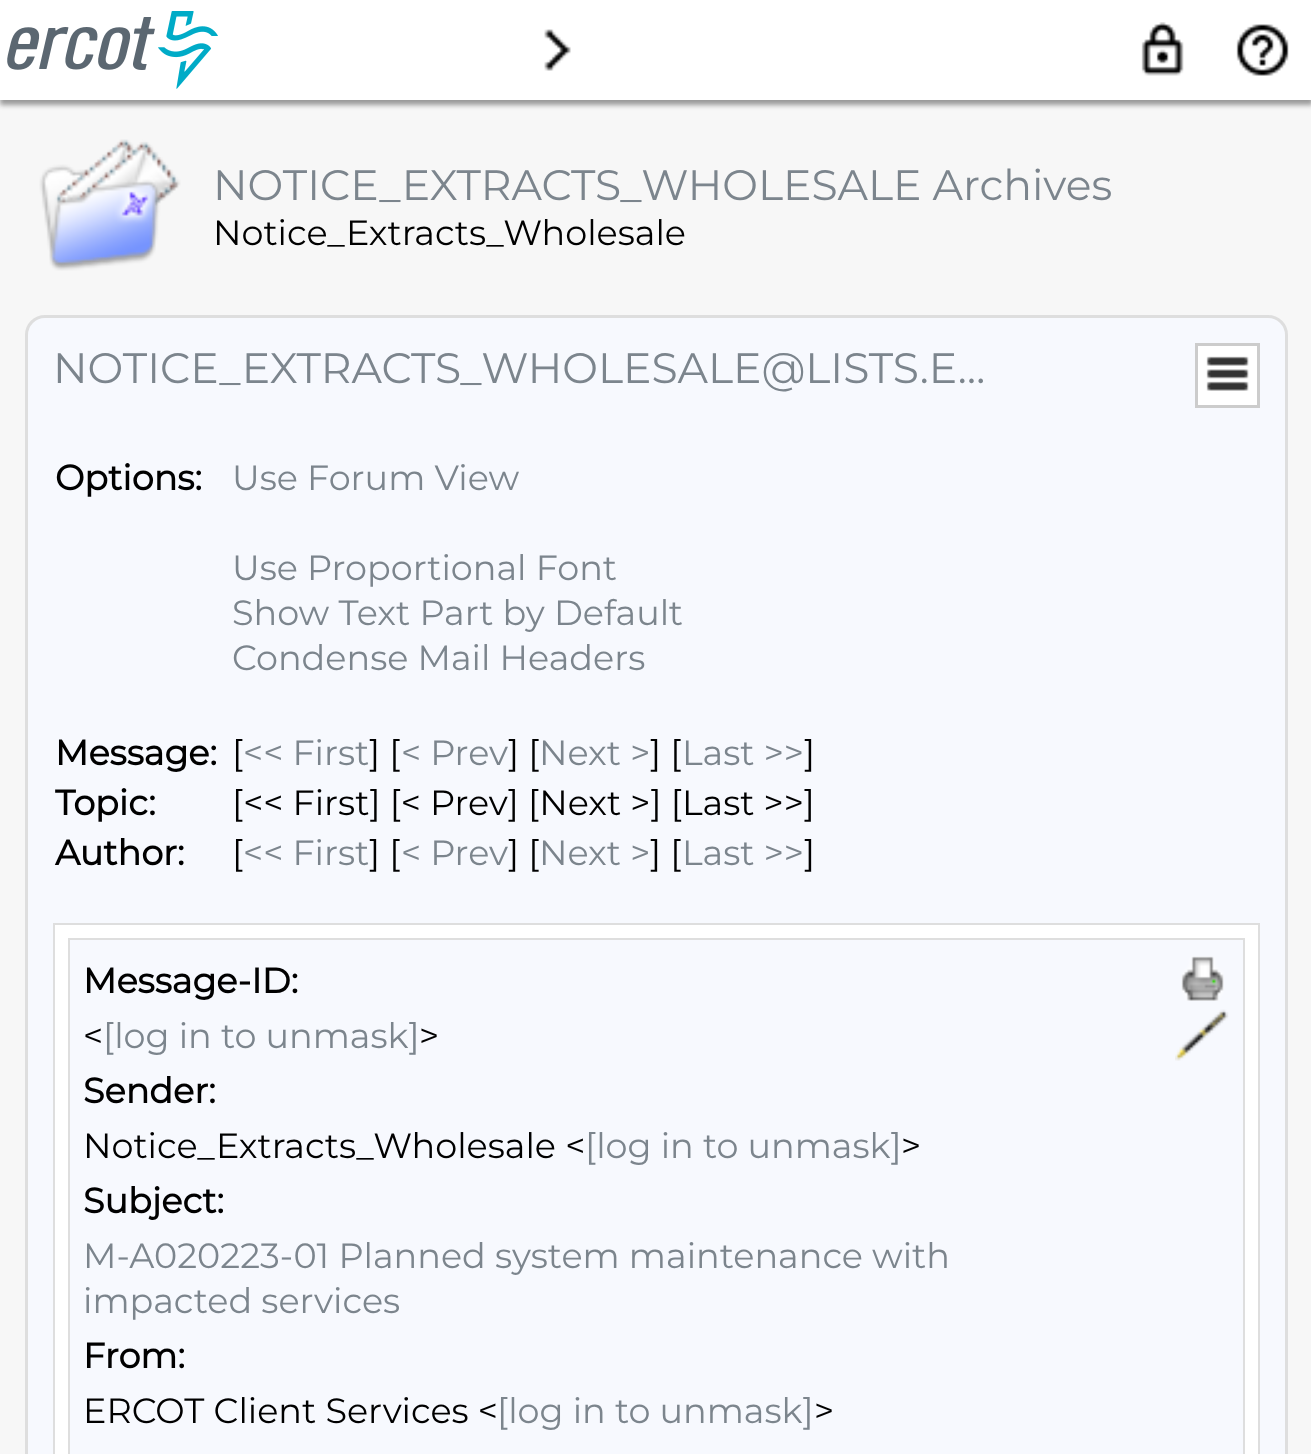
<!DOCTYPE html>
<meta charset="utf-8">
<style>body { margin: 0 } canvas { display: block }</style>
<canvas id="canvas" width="1311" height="1454"></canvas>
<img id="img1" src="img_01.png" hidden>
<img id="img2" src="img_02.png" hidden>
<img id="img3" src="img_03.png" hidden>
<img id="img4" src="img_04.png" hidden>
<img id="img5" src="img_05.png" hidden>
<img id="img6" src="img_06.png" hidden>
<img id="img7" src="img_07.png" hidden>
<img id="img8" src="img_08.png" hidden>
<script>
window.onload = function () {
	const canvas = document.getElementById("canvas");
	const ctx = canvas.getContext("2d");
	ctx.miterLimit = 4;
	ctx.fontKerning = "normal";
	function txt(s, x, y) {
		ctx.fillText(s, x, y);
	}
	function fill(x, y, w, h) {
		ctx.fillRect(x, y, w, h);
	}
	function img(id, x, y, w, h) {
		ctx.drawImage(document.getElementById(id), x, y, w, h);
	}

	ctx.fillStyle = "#F7F7F7";
	fill(0, 0, 1311, 1454);
	ctx.fillStyle = "#999999";
	ctx.filter = "blur(2.5px)";
	ctx.beginPath();
	ctx.rect(0, 5, 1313, 100);
	ctx.fill();
	ctx.filter = "none";
	ctx.fillStyle = "#FFFFFF";
	fill(0, 0, 1311, 100);
	img("img1", 7, 11, 211, 78);
	img("img2", 544, 29, 27, 42);
	img("img3", 1141, 22, 43, 54);
	img("img4", 1236, 24, 53, 52);
	img("img5", 39, 139, 142, 132);
	ctx.fillStyle = "#F7F9FE";
	ctx.beginPath();
	ctx.roundRect(26.5, 316.5, 1260, 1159, 18.5);
	ctx.fill();
	ctx.strokeStyle = "#DEDEDE";
	ctx.lineWidth = 3;
	ctx.stroke();
	ctx.fillStyle = "#FFFFFF";
	ctx.beginPath();
	ctx.rect(1196.5, 344.5, 62, 62);
	ctx.fill();
	ctx.strokeStyle = "#CCCCCC";
	ctx.stroke();
	img("img6", 1206, 356, 43, 35);
	ctx.strokeStyle = "#DEDEDE";
	ctx.strokeRect(54.5, 924.5, 1204, 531);
	fill(55, 925, 1203, 529);
	ctx.strokeRect(69.5, 939.5, 1174, 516);
	ctx.fillStyle = "#F7F9FE";
	fill(70, 940, 1173, 514);
	img("img7", 1181, 956, 43, 45);
	img("img8", 1175, 1009, 54, 52);
	ctx.font = "100 42.5px Montserrat";
	ctx.fillStyle = "#7C858D";
	txt("NOTICE_EXTRACTS_WHOLESALE Archives", 213, 200);
	ctx.font = "100 35px Montserrat";
	ctx.fillStyle = "#000000";
	txt("Notice_Extracts_Wholesale", 213, 245);
	ctx.font = "100 42.5px Montserrat";
	ctx.fillStyle = "#7C858D";
	txt("NOTICE_EXTRACTS_WHOLESALE@LISTS.E…", 53, 383);
	ctx.font = "bold 35px Montserrat";
	ctx.fillStyle = "#000000";
	txt("Options:", 55, 490);
	ctx.font = "100 35px Montserrat";
	ctx.fillStyle = "#7C858D";
	txt("Use Forum View", 232, 490);
	txt("Use Proportional Font", 232, 580);
	txt("Show Text Part by Default", 232, 625);
	txt("Condense Mail Headers", 232, 670);
	ctx.font = "bold 35px Montserrat";
	ctx.fillStyle = "#000000";
	txt("Message:", 55, 765);
	ctx.font = "100 35px Montserrat";
	txt("[", 232, 765);
	ctx.fillStyle = "#7C858D";
	txt("<< First", 243, 765);
	ctx.fillStyle = "#000000";
	txt("] [", 369, 765);
	ctx.fillStyle = "#7C858D";
	txt("< Prev", 401, 765);
	ctx.fillStyle = "#000000";
	txt("] [", 508, 765);
	ctx.fillStyle = "#7C858D";
	txt("Next >", 539, 765);
	ctx.fillStyle = "#000000";
	txt("] [", 650, 765);
	ctx.fillStyle = "#7C858D";
	txt("Last >>", 682, 765);
	ctx.fillStyle = "#000000";
	txt("]", 804, 765);
	ctx.font = "bold 35px Montserrat";
	txt("Topic:", 55, 815);
	ctx.font = "100 35px Montserrat";
	txt("[<< First] [< Prev] [Next >] [Last >>]", 232, 815);
	ctx.font = "bold 35px Montserrat";
	txt("Author:", 55, 865);
	ctx.font = "100 35px Montserrat";
	txt("[", 232, 865);
	ctx.fillStyle = "#7C858D";
	txt("<< First", 243, 865);
	ctx.fillStyle = "#000000";
	txt("] [", 369, 865);
	ctx.fillStyle = "#7C858D";
	txt("< Prev", 401, 865);
	ctx.fillStyle = "#000000";
	txt("] [", 508, 865);
	ctx.fillStyle = "#7C858D";
	txt("Next >", 539, 865);
	ctx.fillStyle = "#000000";
	txt("] [", 650, 865);
	ctx.fillStyle = "#7C858D";
	txt("Last >>", 682, 865);
	ctx.fillStyle = "#000000";
	txt("]", 804, 865);
	ctx.font = "bold 35px Montserrat";
	txt("Message-ID:", 83, 993);
	ctx.font = "100 35px Montserrat";
	txt("<", 83, 1048);
	ctx.fillStyle = "#7C858D";
	txt("[log in to unmask]", 103, 1048);
	ctx.fillStyle = "#000000";
	txt(">", 419, 1048);
	ctx.font = "bold 35px Montserrat";
	txt("Sender:", 83, 1103);
	ctx.font = "100 35px Montserrat";
	txt("Notice_Extracts_Wholesale <", 83, 1158);
	ctx.fillStyle = "#7C858D";
	txt("[log in to unmask]", 585, 1158);
	ctx.fillStyle = "#000000";
	txt(">", 901, 1158);
	ctx.font = "bold 35px Montserrat";
	txt("Subject:", 83, 1213);
	ctx.font = "100 35px Montserrat";
	ctx.fillStyle = "#7C858D";
	txt("M-A020223-01 Planned system maintenance with", 83, 1268);
	txt("impacted services", 83, 1313);
	ctx.font = "bold 35px Montserrat";
	ctx.fillStyle = "#000000";
	txt("From:", 83, 1368);
	ctx.font = "100 35px Montserrat";
	txt("ERCOT Client Services <", 83, 1423);
	ctx.fillStyle = "#7C858D";
	txt("[log in to unmask]", 497, 1423);
	ctx.fillStyle = "#000000";
	txt(">", 814, 1423);
};
</script>
